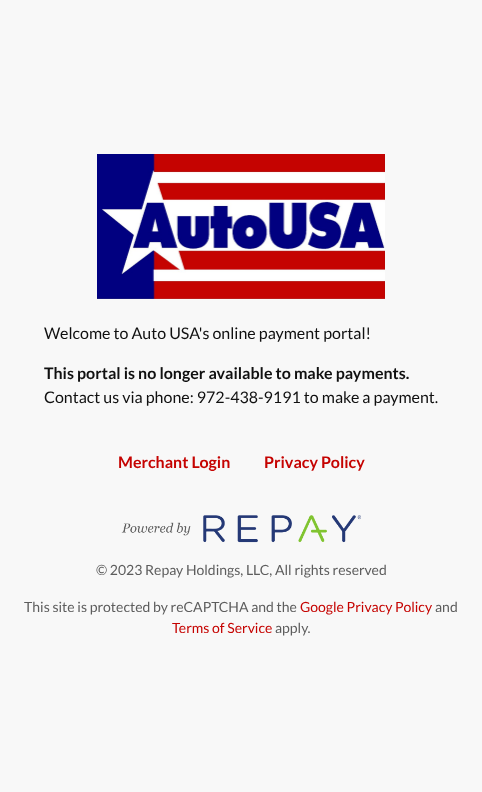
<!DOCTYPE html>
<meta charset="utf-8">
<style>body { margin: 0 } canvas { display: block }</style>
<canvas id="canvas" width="482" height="792"></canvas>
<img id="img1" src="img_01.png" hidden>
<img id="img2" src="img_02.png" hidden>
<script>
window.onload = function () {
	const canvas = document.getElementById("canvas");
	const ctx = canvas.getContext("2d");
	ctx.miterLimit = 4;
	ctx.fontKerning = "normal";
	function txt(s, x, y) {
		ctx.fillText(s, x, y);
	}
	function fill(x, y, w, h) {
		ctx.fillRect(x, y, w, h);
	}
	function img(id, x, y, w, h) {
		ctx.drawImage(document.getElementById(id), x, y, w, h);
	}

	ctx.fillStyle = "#F8F8F8";
	fill(0, 0, 482, 792);
	img("img1", 97, 154, 288, 145);
	img("img2", 121, 515, 240, 28);
	ctx.font = "16px Lato";
	ctx.fillStyle = "#101010";
	txt("Welcome to Auto USA's online payment portal!", 44, 339);
	ctx.font = "bold 16px Lato";
	txt("This portal is no longer available to make payments.", 44, 379);
	ctx.font = "16px Lato";
	txt("Contact us via phone: 972-438-9191 to make a payment.", 44, 403);
	ctx.font = "bold 16px Lato";
	ctx.fillStyle = "#C50301";
	txt("Merchant Login", 118, 468);
	txt("Privacy Policy", 264, 468);
	ctx.font = "14px Lato";
	ctx.fillStyle = "#5D5D5D";
	txt("© 2023 Repay Holdings, LLC, All rights reserved", 96, 575);
	txt("This site is protected by reCAPTCHA and the", 24, 612);
	ctx.fillStyle = "#C50301";
	txt("Google Privacy Policy", 300, 612);
	ctx.fillStyle = "#5D5D5D";
	txt("and", 435, 612);
	ctx.fillStyle = "#C50301";
	txt("Terms of Service", 172, 633);
	ctx.fillStyle = "#5D5D5D";
	txt("apply.", 275, 633);
};
</script>
